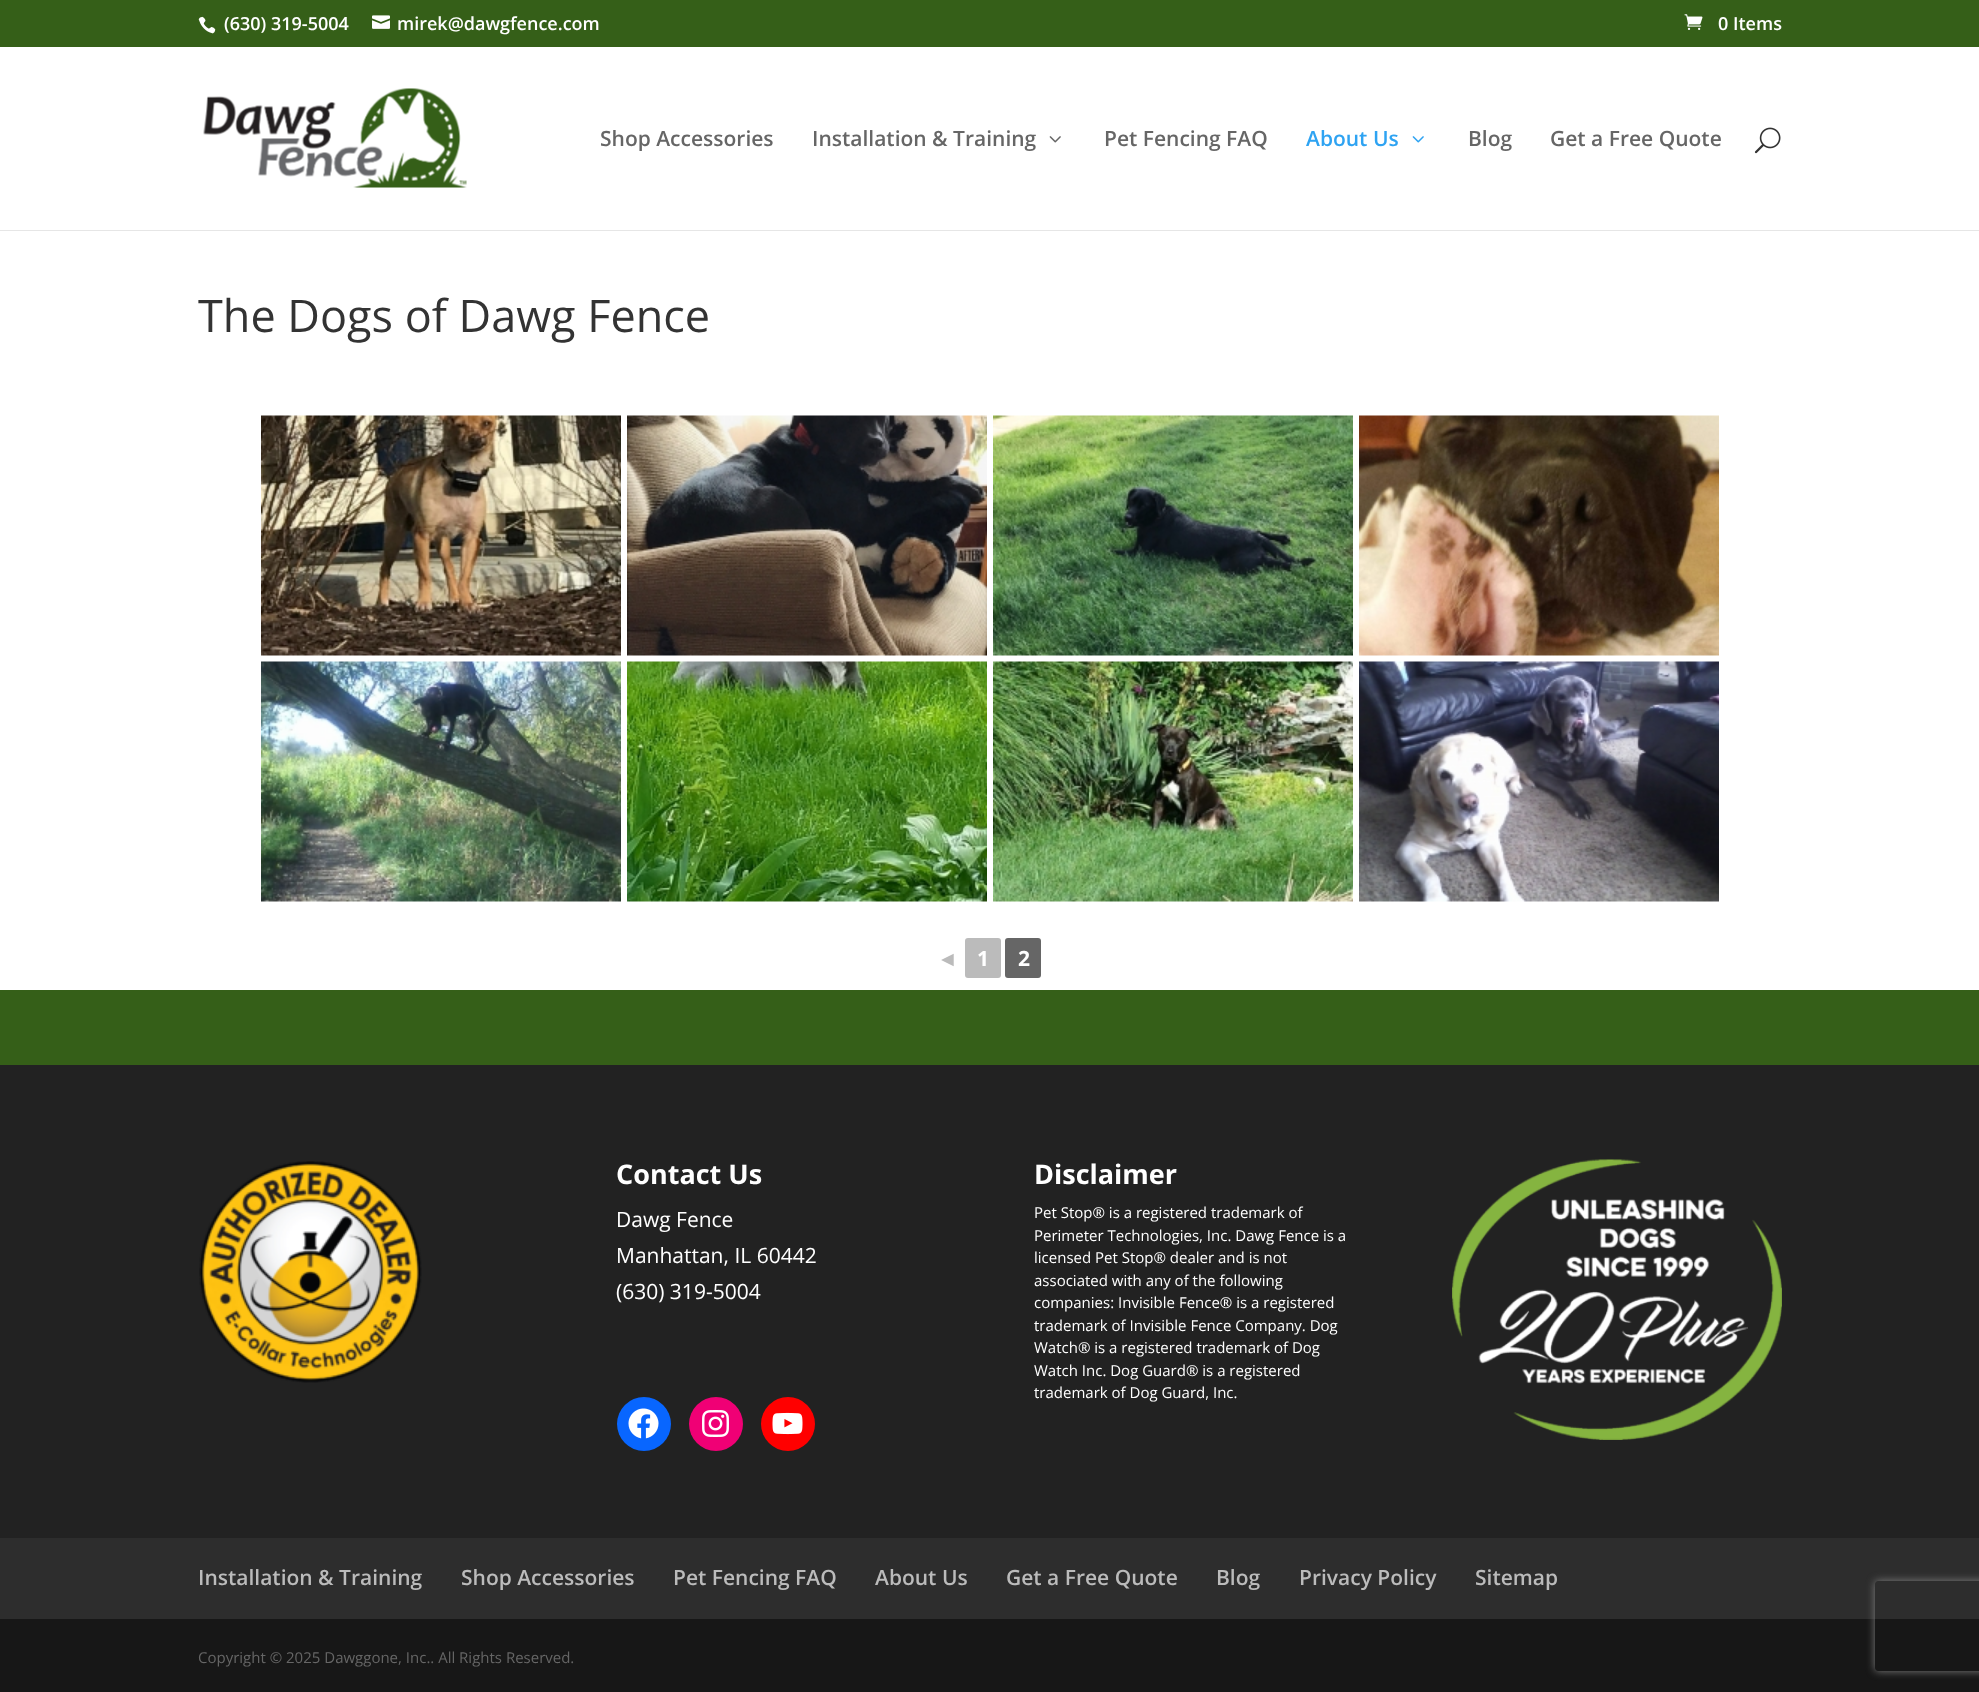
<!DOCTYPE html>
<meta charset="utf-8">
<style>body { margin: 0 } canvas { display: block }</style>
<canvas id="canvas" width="1979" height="1692"></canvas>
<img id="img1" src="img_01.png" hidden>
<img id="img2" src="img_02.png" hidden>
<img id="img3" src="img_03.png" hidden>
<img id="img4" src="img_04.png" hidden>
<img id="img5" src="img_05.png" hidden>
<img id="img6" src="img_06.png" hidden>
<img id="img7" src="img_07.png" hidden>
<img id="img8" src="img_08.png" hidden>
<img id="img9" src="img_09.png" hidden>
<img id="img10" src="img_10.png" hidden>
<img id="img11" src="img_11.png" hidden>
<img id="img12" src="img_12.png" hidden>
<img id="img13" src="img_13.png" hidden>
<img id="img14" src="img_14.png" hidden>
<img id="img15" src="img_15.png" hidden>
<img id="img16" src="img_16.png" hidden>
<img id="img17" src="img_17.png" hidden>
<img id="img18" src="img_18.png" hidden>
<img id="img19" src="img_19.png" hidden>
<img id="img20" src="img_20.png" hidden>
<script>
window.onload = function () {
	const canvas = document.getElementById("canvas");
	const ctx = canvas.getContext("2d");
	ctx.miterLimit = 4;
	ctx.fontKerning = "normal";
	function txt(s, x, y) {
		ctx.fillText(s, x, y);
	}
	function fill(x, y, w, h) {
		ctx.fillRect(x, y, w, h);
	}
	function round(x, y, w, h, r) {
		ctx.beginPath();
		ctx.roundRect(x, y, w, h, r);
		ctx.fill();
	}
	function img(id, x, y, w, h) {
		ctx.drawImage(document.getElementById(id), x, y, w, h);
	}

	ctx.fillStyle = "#355F18";
	fill(0, 0, 1979, 1692);
	img("img1", 198, 16, 18, 18);
	img("img2", 372, 15, 18, 14);
	img("img3", 1684, 14, 19, 16);
	ctx.fillStyle = "#E6E6E6";
	fill(0, 230, 1979, 1);
	ctx.fillStyle = "#FFFFFF";
	fill(0, 47, 1979, 183);
	img("img4", 203, 88, 264, 100);
	img("img5", 1049, 136, 12, 7);
	img("img6", 1412, 136, 12, 7);
	img("img7", 1754, 127, 27, 27);
	fill(0, 231, 1979, 759);
	img("img8", 261, 415, 360, 241);
	img("img9", 627, 415, 360, 241);
	img("img10", 993, 415, 360, 241);
	img("img11", 1359, 415, 360, 241);
	img("img12", 261, 661, 360, 241);
	img("img13", 627, 661, 360, 241);
	img("img14", 993, 661, 360, 241);
	img("img15", 1359, 661, 360, 241);
	ctx.fillStyle = "#BBBBBB";
	round(965, 938, 36, 40, 3);
	ctx.fillStyle = "#666666";
	round(1005, 938, 36, 40, 3);
	ctx.fillStyle = "#222222";
	fill(0, 1065, 1979, 473);
	img("img16", 199, 1161, 223, 222);
	ctx.fillStyle = "#0866FF";
	ctx.beginPath();
	ctx.arc(644, 1424, 27, 0, Math.PI * 2);
	ctx.fill();
	img("img17", 628, 1408, 31, 31);
	ctx.fillStyle = "#F00075";
	ctx.beginPath();
	ctx.arc(716, 1424, 27, 0, Math.PI * 2);
	ctx.fill();
	img("img18", 702, 1410, 27, 27);
	ctx.fillStyle = "#FF0000";
	ctx.beginPath();
	ctx.arc(788, 1424, 27, 0, Math.PI * 2);
	ctx.fill();
	img("img19", 772, 1412, 31, 23);
	img("img20", 1452, 1159, 330, 281);
	ctx.fillStyle = "#2D2D2D";
	fill(0, 1538, 1979, 81);
	ctx.fillStyle = "#171717";
	fill(0, 1619, 1979, 73);
	ctx.save();
	ctx.beginPath();
	ctx.moveTo(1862, 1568);
	ctx.lineTo(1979, 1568);
	ctx.lineTo(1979, 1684);
	ctx.lineTo(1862, 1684);
	ctx.closePath();
	ctx.moveTo(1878, 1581);
	ctx.lineTo(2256, 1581);
	ctx.bezierCurveTo(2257.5, 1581, 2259, 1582.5, 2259, 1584);
	ctx.lineTo(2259, 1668);
	ctx.bezierCurveTo(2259, 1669.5, 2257.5, 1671, 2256, 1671);
	ctx.lineTo(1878, 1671);
	ctx.bezierCurveTo(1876.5, 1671, 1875, 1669.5, 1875, 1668);
	ctx.lineTo(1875, 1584);
	ctx.bezierCurveTo(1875, 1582.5, 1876.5, 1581, 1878, 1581);
	ctx.closePath();
	ctx.clip("evenodd");
	ctx.fillStyle = "#808080";
	ctx.filter = "blur(4px)";
	ctx.beginPath();
	ctx.roundRect(1875, 1581, 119, 90, 3);
	ctx.fill();
	ctx.filter = "none";
	ctx.restore();
	ctx.font = "600 18px Open Sans";
	ctx.fillStyle = "#FFFFFF";
	txt("(630) 319-5004", 224, 30);
	txt("mirek@dawgfence.com", 397, 30);
	txt("0 Items", 1718, 30);
	ctx.font = "600 21px Open Sans";
	ctx.fillStyle = "#666666";
	txt("Shop Accessories", 600, 146);
	txt("Installation & Training", 812, 146);
	txt("Pet Fencing FAQ", 1104, 146);
	ctx.fillStyle = "#2EA3F2";
	txt("About Us", 1306, 146);
	ctx.fillStyle = "#666666";
	txt("Blog", 1468, 146);
	txt("Get a Free Quote", 1550, 146);
	ctx.font = "45px Open Sans";
	ctx.fillStyle = "#333333";
	txt("The Dogs of Dawg Fence", 198, 332);
	ctx.font = "bold 21px Liberation Sans";
	ctx.fillStyle = "#BBBBBB";
	txt("◄", 937, 966);
	ctx.font = "bold 21px Open Sans";
	ctx.fillStyle = "#FFFFFF";
	txt("1", 977, 966);
	txt("2", 1018, 966);
	ctx.font = "bold 27px Open Sans";
	txt("Contact Us", 616, 1184);
	ctx.font = "21px Open Sans";
	txt("Dawg Fence", 616, 1227);
	txt("Manhattan, IL 60442", 616, 1263);
	txt("(630) 319-5004", 616, 1299);
	ctx.font = "bold 27px Open Sans";
	txt("Disclaimer", 1034, 1184);
	ctx.font = "15px Open Sans";
	txt("Pet Stop® is a registered trademark of", 1034, 1218);
	txt("Perimeter Technologies, Inc. Dawg Fence is a", 1034, 1241);
	txt("licensed Pet Stop® dealer and is not", 1034, 1263);
	txt("associated with any of the following", 1034, 1286);
	txt("companies: Invisible Fence® is a registered", 1034, 1308);
	txt("trademark of Invisible Fence Company. Dog", 1034, 1331);
	txt("Watch® is a registered trademark of Dog", 1034, 1353);
	txt("Watch Inc. Dog Guard® is a registered", 1034, 1376);
	txt("trademark of Dog Guard, Inc.", 1034, 1398);
	ctx.font = "600 21px Open Sans";
	ctx.fillStyle = "#BBBBBB";
	txt("Installation & Training", 198, 1585);
	txt("Shop Accessories", 461, 1585);
	txt("Pet Fencing FAQ", 673, 1585);
	txt("About Us", 875, 1585);
	txt("Get a Free Quote", 1006, 1585);
	txt("Blog", 1216, 1585);
	txt("Privacy Policy", 1299, 1585);
	txt("Sitemap", 1475, 1585);
	ctx.font = "15px Open Sans";
	ctx.fillStyle = "#666666";
	txt("Copyright © 2025 Dawggone, Inc.. All Rights Reserved.", 198, 1663);
};
</script>
